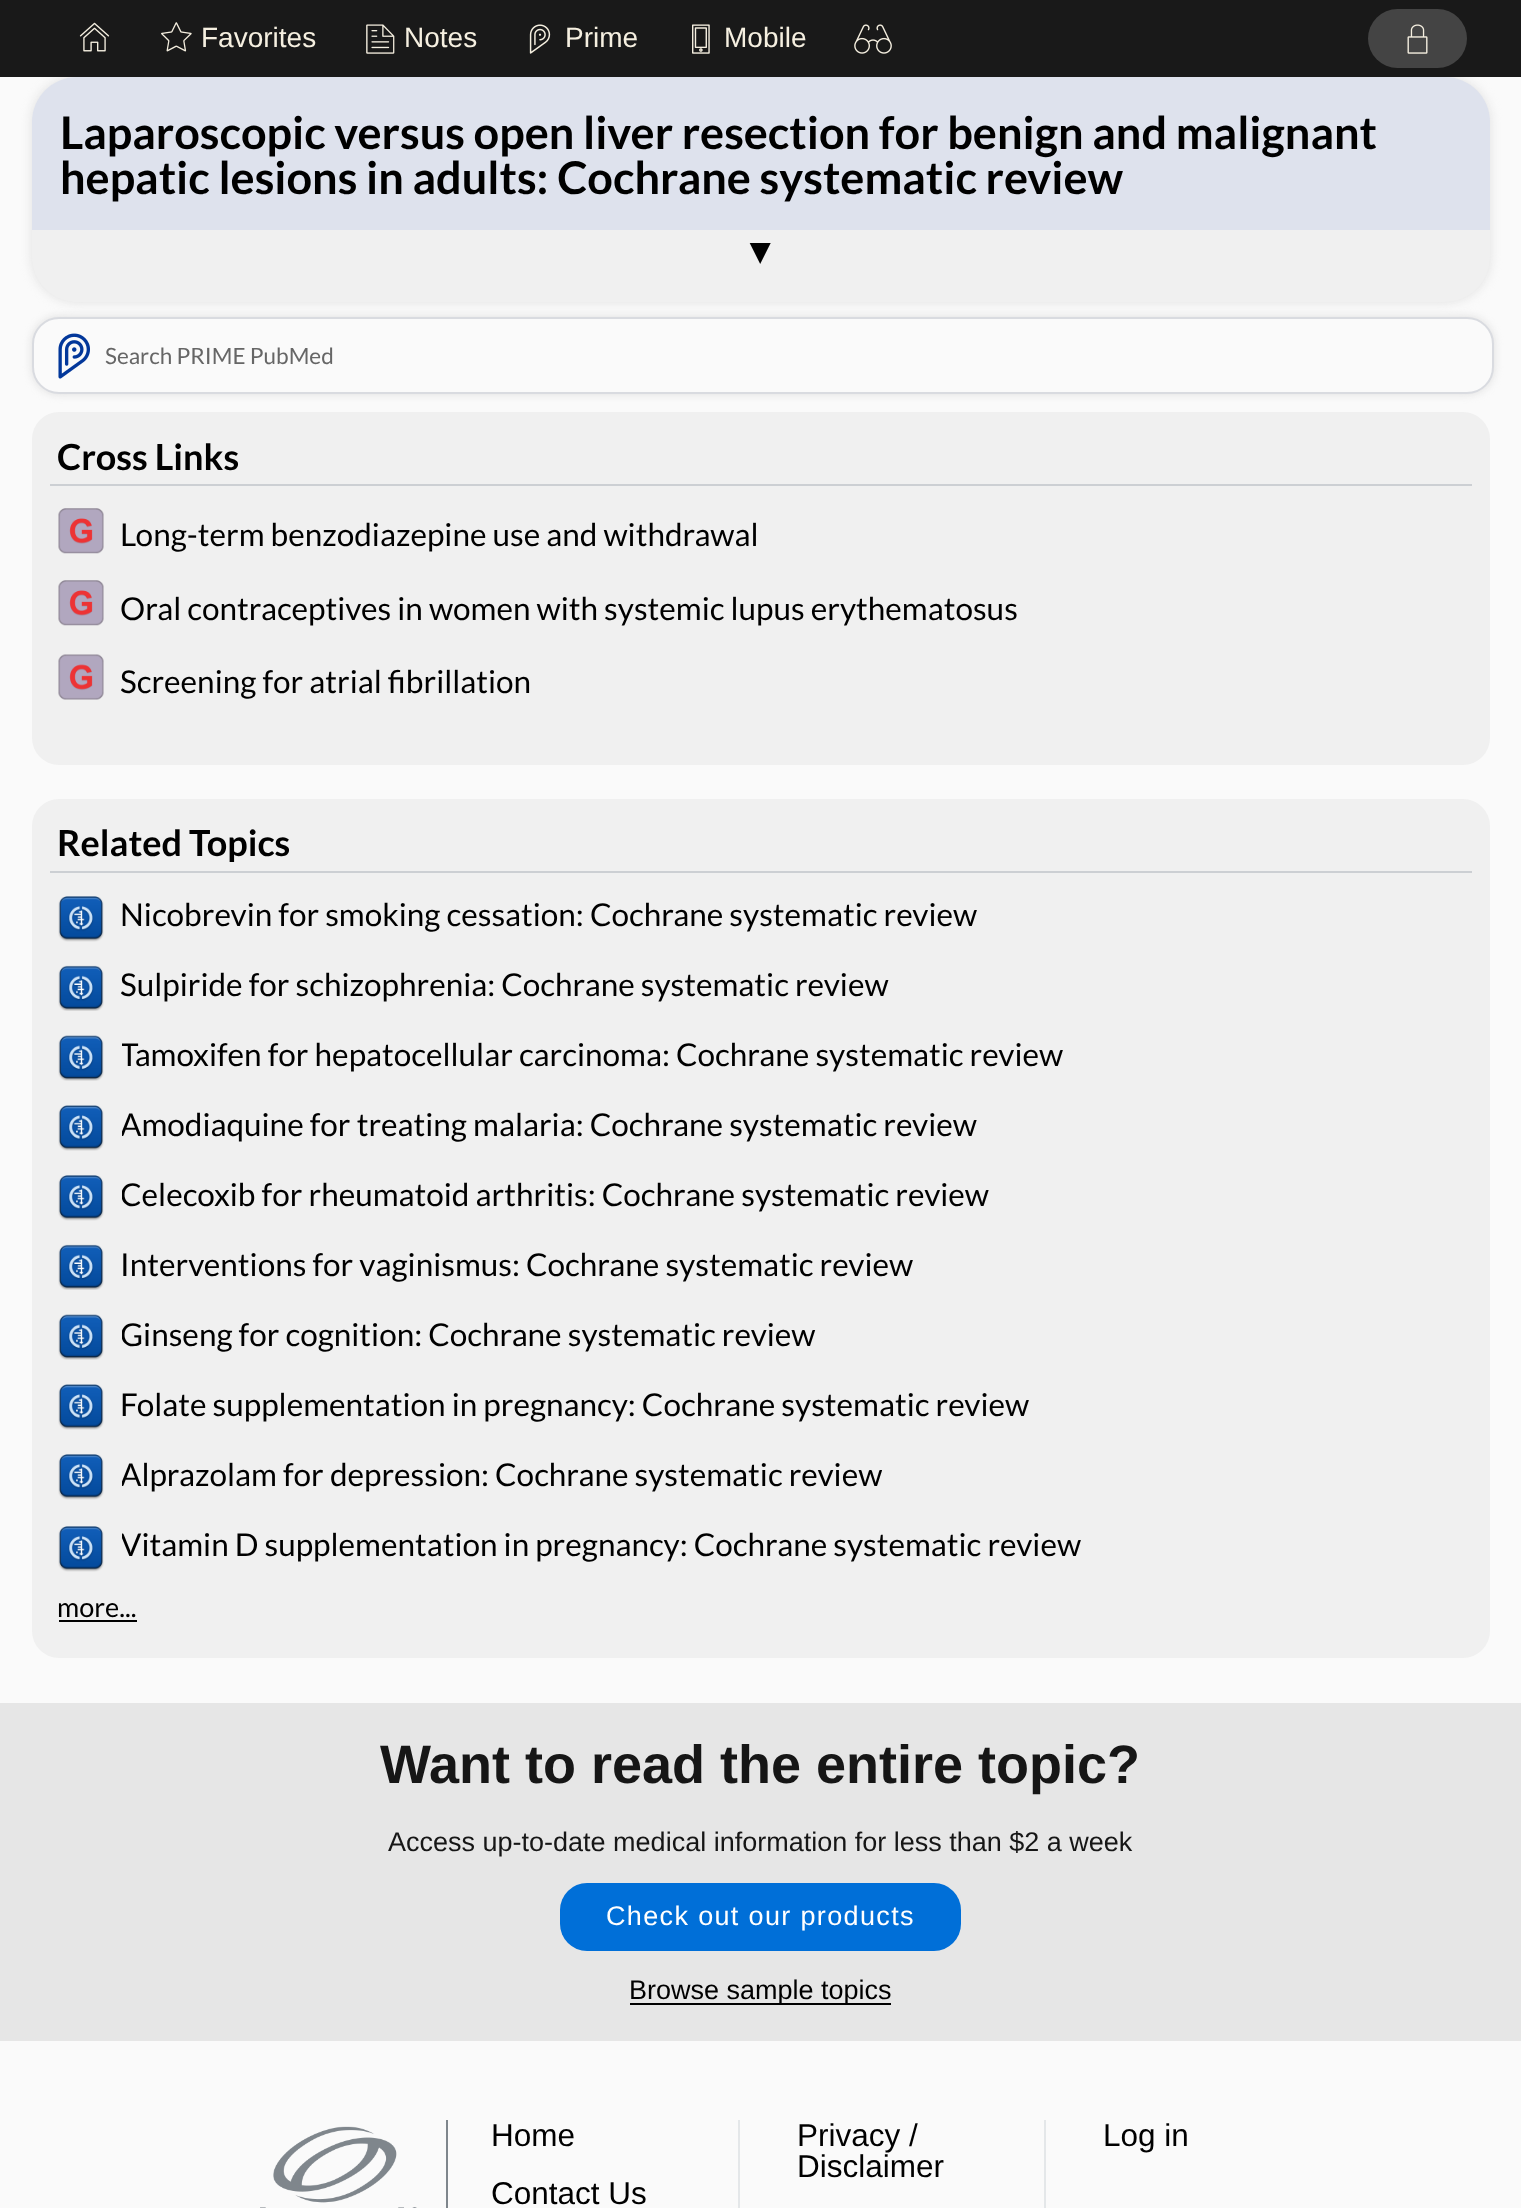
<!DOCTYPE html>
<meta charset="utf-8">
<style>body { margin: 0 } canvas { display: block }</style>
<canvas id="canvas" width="1521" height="2208"></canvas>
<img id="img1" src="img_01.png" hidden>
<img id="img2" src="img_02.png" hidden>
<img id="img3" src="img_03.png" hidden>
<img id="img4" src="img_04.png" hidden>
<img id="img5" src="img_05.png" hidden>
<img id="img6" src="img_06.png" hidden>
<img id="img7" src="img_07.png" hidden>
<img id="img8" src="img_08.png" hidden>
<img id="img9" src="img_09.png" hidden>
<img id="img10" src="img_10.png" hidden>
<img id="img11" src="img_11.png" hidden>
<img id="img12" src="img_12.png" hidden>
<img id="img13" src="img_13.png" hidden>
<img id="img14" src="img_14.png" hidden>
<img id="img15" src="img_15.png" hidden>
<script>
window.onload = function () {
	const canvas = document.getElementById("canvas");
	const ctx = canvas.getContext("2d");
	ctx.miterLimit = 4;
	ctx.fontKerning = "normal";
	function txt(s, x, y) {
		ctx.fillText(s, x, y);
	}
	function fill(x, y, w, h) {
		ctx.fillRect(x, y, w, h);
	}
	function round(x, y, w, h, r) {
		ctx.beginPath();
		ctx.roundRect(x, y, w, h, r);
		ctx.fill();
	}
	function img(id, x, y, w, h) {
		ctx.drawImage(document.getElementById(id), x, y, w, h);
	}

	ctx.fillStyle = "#FAFAFA";
	fill(0, 0, 1521, 2208);
	ctx.fillStyle = "#DDDDDD";
	ctx.filter = "blur(4.5px)";
	ctx.beginPath();
	ctx.roundRect(32, 317, 1462, 77, 27);
	ctx.fill();
	ctx.filter = "none";
	ctx.fillStyle = "#FAFAFA";
	ctx.beginPath();
	ctx.roundRect(33, 318, 1460, 75, 26);
	ctx.fill();
	ctx.strokeStyle = "#D9DBE0";
	ctx.lineWidth = 2;
	ctx.stroke();
	ctx.fillStyle = "#E0E0E0";
	ctx.filter = "blur(5.5px)";
	ctx.beginPath();
	ctx.roundRect(32, 77, 1458, 225, 45);
	ctx.fill();
	ctx.filter = "none";
	ctx.fillStyle = "#191919";
	fill(0, 0, 1521, 77);
	img("img1", 79, 22, 31, 30);
	img("img2", 161, 22, 31, 30);
	img("img3", 366, 24, 29, 30);
	img("img4", 529, 24, 22, 30);
	img("img5", 692, 24, 18, 30);
	img("img6", 854, 24, 38, 30);
	ctx.fillStyle = "#444444";
	round(1368, 9, 99, 59, 29.5);
	img("img7", 1407, 24, 21, 30);
	ctx.fillStyle = "#F0F0F0";
	round(32, 77, 1458, 225, 45);
	ctx.fillStyle = "#DEE2ED";
	ctx.beginPath();
	ctx.roundRect(32, 77, 1458, 153, [45, 45, 0, 0]);
	ctx.fill();
	img("img8", 58, 333, 32, 46);
	ctx.fillStyle = "#F0F0F0";
	round(32, 412, 1458, 353, 27);
	ctx.fillStyle = "#CCCFD3";
	fill(50, 484, 1422, 2);
	img("img9", 58, 508, 46, 46);
	img("img9", 58, 580, 46, 46);
	img("img10", 58, 654, 46, 46);
	ctx.fillStyle = "#F0F0F0";
	round(32, 799, 1458, 859, 27);
	ctx.fillStyle = "#CCCFD3";
	fill(50, 871, 1422, 2);
	img("img11", 58, 896, 46, 46);
	img("img12", 58, 965, 46, 46);
	img("img13", 58, 1035, 46, 46);
	img("img14", 58, 1105, 46, 46);
	img("img11", 58, 1175, 46, 46);
	img("img12", 58, 1244, 46, 46);
	img("img13", 58, 1314, 46, 46);
	img("img14", 58, 1384, 46, 46);
	img("img11", 58, 1454, 46, 46);
	img("img11", 58, 1526, 46, 46);
	ctx.fillStyle = "#000000";
	fill(59, 1620, 78, 2);
	ctx.fillStyle = "#E6E6E6";
	fill(0, 1703, 1521, 338);
	ctx.fillStyle = "#006FD8";
	round(560, 1883, 401, 68, 27);
	ctx.fillStyle = "#000000";
	fill(630, 2003, 261, 2);
	ctx.fillStyle = "#7F868C";
	fill(446, 2120, 2, 88);
	img("img15", 260, 2126, 157, 82);
	ctx.fillStyle = "#E4E7E9";
	fill(738, 2120, 2, 88);
	fill(1044, 2120, 2, 88);
	ctx.font = "28px Liberation Sans";
	ctx.fillStyle = "#F5EFE0";
	txt("Favorites", 201, 47);
	txt("Notes", 404, 47);
	txt("Prime", 565, 47);
	txt("Mobile", 724, 47);
	ctx.font = "bold 45px Lato";
	ctx.fillStyle = "#000000";
	txt("Laparoscopic versus open liver resection for benign and malignant", 60, 149);
	txt("hepatic lesions in adults: Cochrane systematic review", 60, 194);
	ctx.font = "36px Liberation Serif";
	ctx.save();
	ctx.translate(778, 243);
	ctx.rotate(180 * Math.PI / 180);
	ctx.fillText("▲", 0, 0);
	ctx.restore();
	ctx.font = "22.5px Lato";
	ctx.fillStyle = "#666666";
	txt("Search PRIME PubMed", 105, 364);
	ctx.font = "bold 36px Lato";
	ctx.fillStyle = "#000000";
	txt("Cross Links", 57, 470);
	ctx.font = "31.5px Lato";
	txt("Long-term benzodiazepine use and withdrawal", 120, 546);
	txt("Oral contraceptives in women with systemic lupus erythematosus", 120, 620);
	txt("Screening for atrial fibrillation", 120, 693);
	ctx.font = "bold 36px Lato";
	txt("Related Topics", 57, 856);
	ctx.font = "31.5px Lato";
	txt("Nicobrevin for smoking cessation: Cochrane systematic review", 120, 926);
	txt("Sulpiride for schizophrenia: Cochrane systematic review", 120, 996);
	ctx.save();
	ctx.beginPath();
	ctx.rect(122, 1040, 942, 51);
	ctx.clip();
	txt("Tamoxifen for hepatocellular carcinoma: Cochrane systematic review", 120, 1066);
	ctx.restore();
	ctx.save();
	ctx.beginPath();
	ctx.rect(122, 1109, 855, 52);
	ctx.clip();
	txt("Amodiaquine for treating malaria: Cochrane systematic review", 120, 1136);
	ctx.restore();
	ctx.save();
	ctx.beginPath();
	ctx.rect(122, 1179, 868, 52);
	ctx.clip();
	txt("Celecoxib for rheumatoid arthritis: Cochrane systematic review", 120, 1206);
	ctx.restore();
	txt("Interventions for vaginismus: Cochrane systematic review", 120, 1276);
	ctx.save();
	ctx.beginPath();
	ctx.rect(122, 1319, 695, 51);
	ctx.clip();
	txt("Ginseng for cognition: Cochrane systematic review", 120, 1346);
	ctx.restore();
	txt("Folate supplementation in pregnancy: Cochrane systematic review", 120, 1416);
	ctx.save();
	ctx.beginPath();
	ctx.rect(122, 1458, 760, 54);
	ctx.clip();
	txt("Alprazolam for depression: Cochrane systematic review", 120, 1486);
	ctx.restore();
	ctx.save();
	ctx.beginPath();
	ctx.rect(122, 1530, 960, 52);
	ctx.clip();
	txt("Vitamin D supplementation in pregnancy: Cochrane systematic review", 120, 1556);
	ctx.restore();
	ctx.font = "27px Lato";
	txt("more...", 57, 1617);
	ctx.font = "bold 54px Liberation Sans";
	ctx.fillStyle = "#161616";
	txt("Want to read the entire topic?", 380, 1783);
	ctx.font = "27px Liberation Sans";
	txt("Access up-to-date medical information for less than $2 a week", 388, 1851);
	ctx.letterSpacing = "1.35px";
	ctx.fillStyle = "#FFFFFF";
	txt("Check out our products", 606, 1925);
	ctx.letterSpacing = "0px";
	ctx.fillStyle = "#000000";
	txt("Browse sample topics", 629, 1999);
	ctx.font = "31.5px Liberation Sans";
	txt("Home", 491, 2146);
	txt("Contact Us", 491, 2204);
	txt("Privacy /", 797, 2146);
	txt("Disclaimer", 797, 2177);
	txt("Log in", 1103, 2146);
};
</script>
